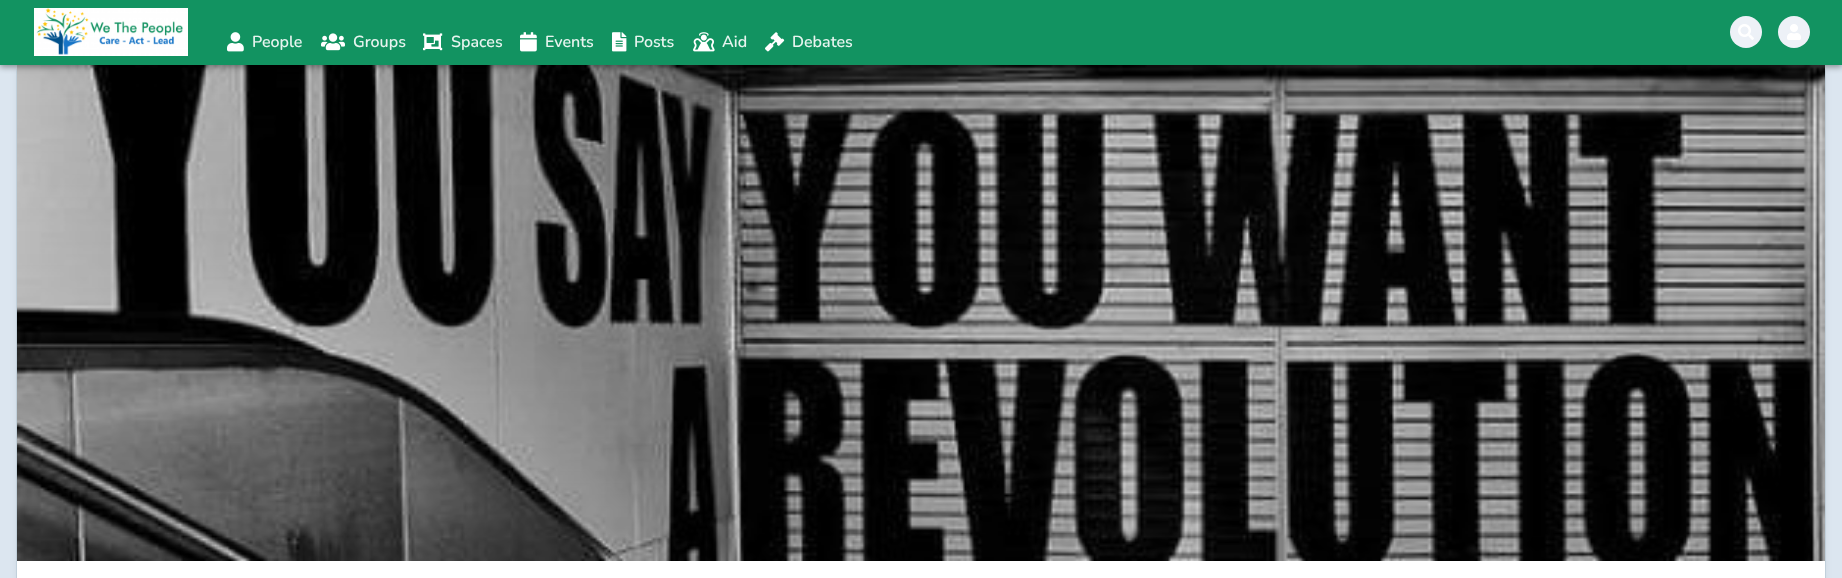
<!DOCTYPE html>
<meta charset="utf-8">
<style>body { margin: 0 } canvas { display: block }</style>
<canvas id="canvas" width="1842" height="578"></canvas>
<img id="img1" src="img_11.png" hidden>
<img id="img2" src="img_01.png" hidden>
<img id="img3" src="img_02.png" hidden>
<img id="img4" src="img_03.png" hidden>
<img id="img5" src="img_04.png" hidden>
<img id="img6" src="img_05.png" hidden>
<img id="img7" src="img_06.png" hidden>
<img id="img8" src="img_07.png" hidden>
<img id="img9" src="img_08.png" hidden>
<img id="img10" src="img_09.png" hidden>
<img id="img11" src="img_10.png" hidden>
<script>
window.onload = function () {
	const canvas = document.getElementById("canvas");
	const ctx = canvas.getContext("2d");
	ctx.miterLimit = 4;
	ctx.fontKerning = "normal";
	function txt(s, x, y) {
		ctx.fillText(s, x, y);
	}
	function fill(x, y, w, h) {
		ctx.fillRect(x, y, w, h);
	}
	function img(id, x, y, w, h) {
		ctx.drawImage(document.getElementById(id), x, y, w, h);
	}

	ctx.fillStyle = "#DCE6F0";
	fill(0, 0, 1842, 578);
	ctx.fillStyle = "rgba(0, 0, 0, 0.05)";
	ctx.filter = "blur(3px)";
	ctx.beginPath();
	ctx.roundRect(16, 66, 1810, 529, 8);
	ctx.fill();
	ctx.filter = "none";
	ctx.fillStyle = "#FFFFFF";
	fill(17, 561, 1808, 17);
	ctx.beginPath();
	ctx.roundRect(16.5, 64.5, 1809, 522, 7.5);
	ctx.strokeStyle = "rgba(20, 80, 100, 0.1)";
	ctx.stroke();
	img("img1", 17, 65, 1808, 496);
	ctx.fillStyle = "rgba(0, 0, 0, 0.4)";
	ctx.filter = "blur(3px)";
	ctx.beginPath();
	ctx.rect(0, 2, 1842, 65);
	ctx.fill();
	ctx.filter = "none";
	ctx.fillStyle = "#129361";
	fill(0, 0, 1842, 65);
	img("img2", 34, 8, 154, 48);
	img("img3", 227, 32, 17, 20);
	img("img4", 321, 33, 24, 18);
	img("img5", 423, 33, 20, 18);
	img("img6", 520, 32, 17, 20);
	img("img7", 612, 32, 15, 20);
	img("img8", 693, 32, 22, 20);
	img("img9", 765, 32, 20, 20);
	ctx.fillStyle = "#EDF1F7";
	ctx.beginPath();
	ctx.arc(1746, 32, 16, 0, Math.PI * 2);
	ctx.fill();
	img("img10", 1738, 24, 16, 16);
	ctx.beginPath();
	ctx.arc(1794, 32, 16, 0, Math.PI * 2);
	ctx.fill();
	img("img11", 1787, 24, 14, 16);
	ctx.font = "600 16px Nunito";
	ctx.fillStyle = "#E7F4EF";
	txt("People", 252, 47);
	txt("Groups", 353, 47);
	txt("Spaces", 451, 47);
	txt("Events", 545, 47);
	txt("Posts", 634, 47);
	txt("Aid", 722, 47);
	txt("Debates", 792, 47);
};
</script>
